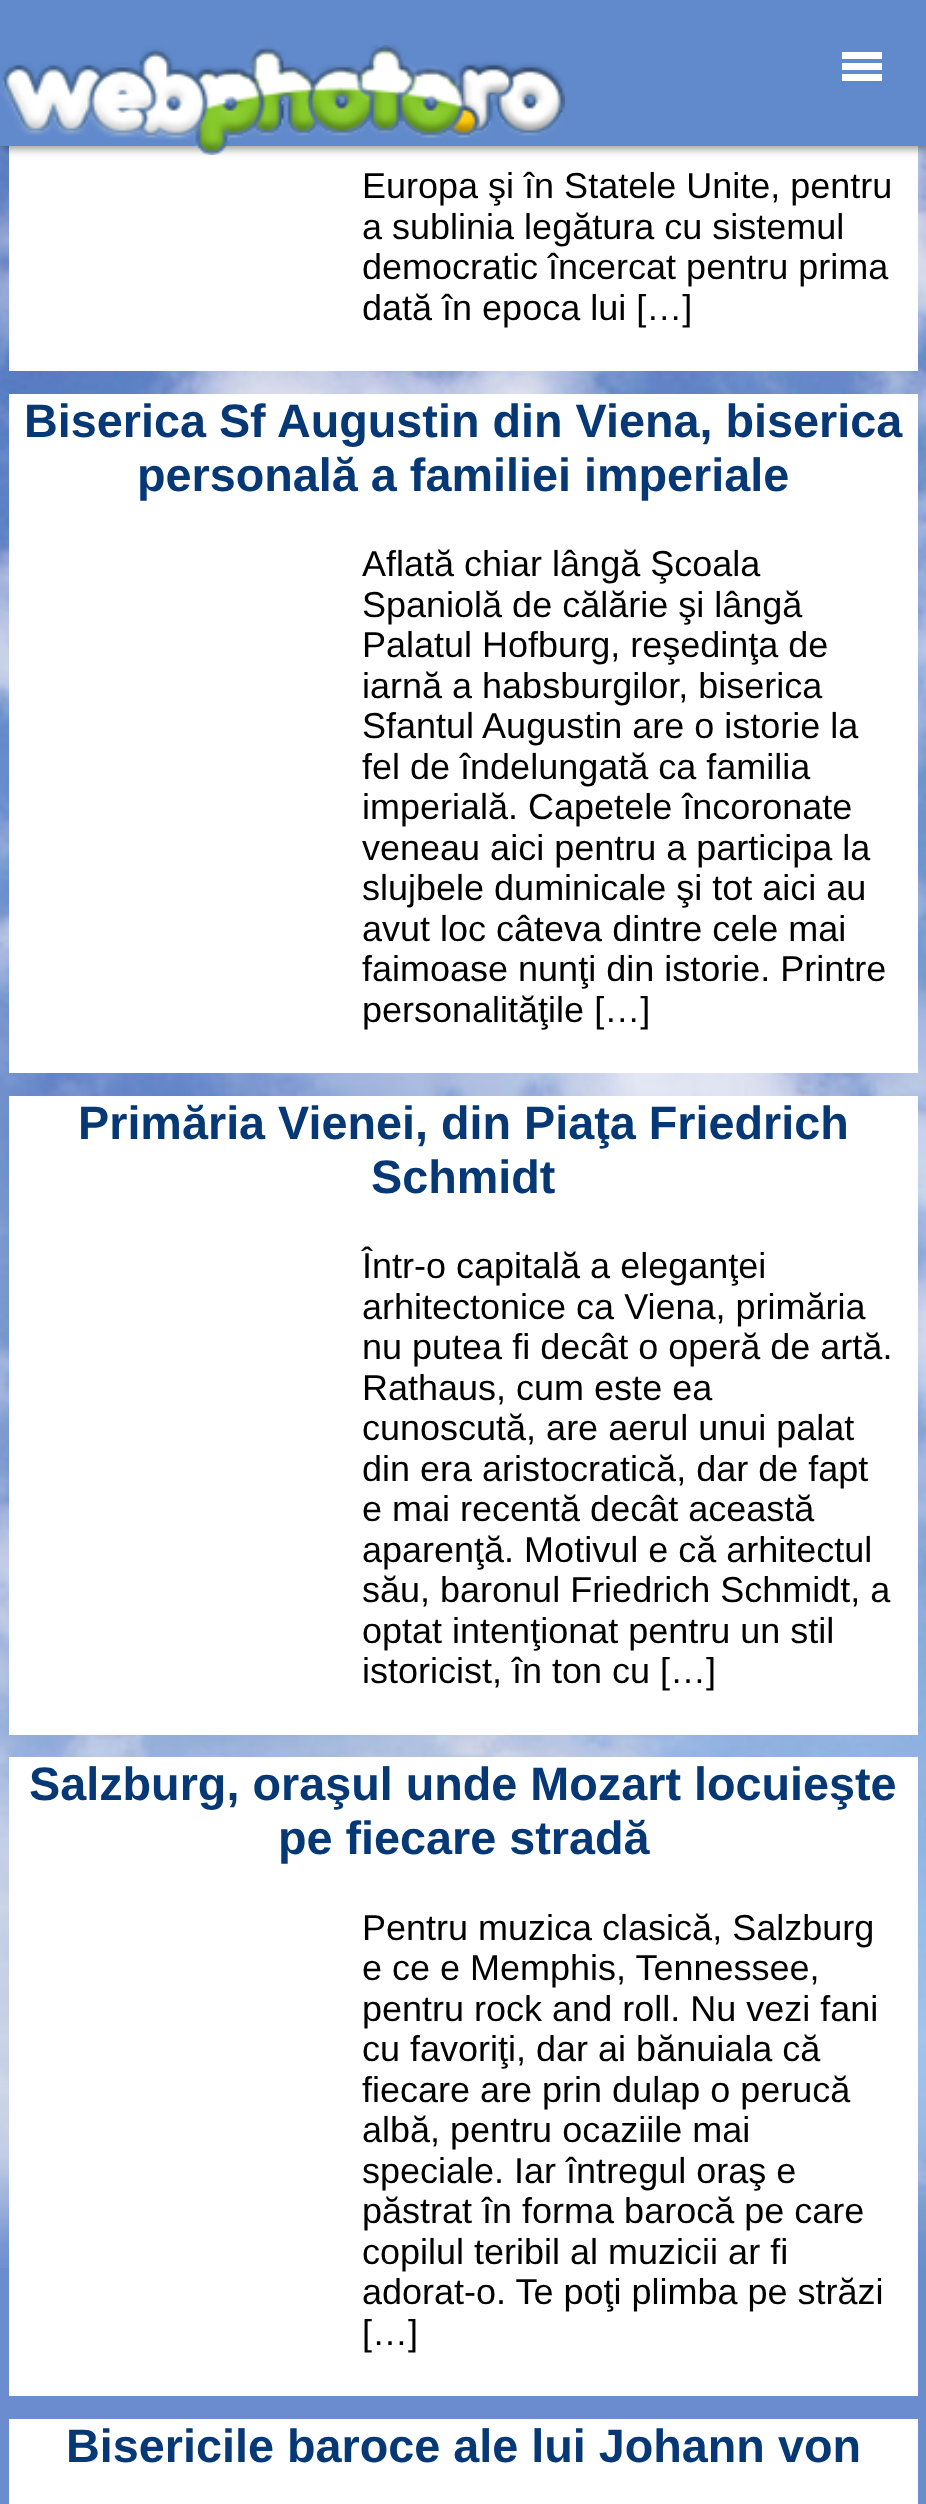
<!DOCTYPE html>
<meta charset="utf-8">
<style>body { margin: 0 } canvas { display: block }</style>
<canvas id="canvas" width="926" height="2504"></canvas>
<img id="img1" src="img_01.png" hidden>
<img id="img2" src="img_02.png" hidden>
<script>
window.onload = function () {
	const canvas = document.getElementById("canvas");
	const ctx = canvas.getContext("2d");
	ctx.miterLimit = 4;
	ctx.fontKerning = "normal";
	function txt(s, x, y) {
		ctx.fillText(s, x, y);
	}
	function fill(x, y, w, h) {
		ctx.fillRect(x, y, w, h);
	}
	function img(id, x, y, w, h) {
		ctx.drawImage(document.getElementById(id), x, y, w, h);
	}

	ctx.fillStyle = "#6B8DCF";
	fill(0, 0, 926, 2504);
	img("img1", 0, 146, 926, 2122);
	ctx.fillStyle = "#FFFFFF";
	fill(9, 146, 909, 225);
	ctx.fillStyle = "rgba(0, 0, 0, 0.4)";
	ctx.filter = "blur(4.5px)";
	ctx.beginPath();
	ctx.rect(2, 2, 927, 147);
	ctx.fill();
	ctx.filter = "none";
	ctx.fillStyle = "#618ACD";
	fill(0, 0, 926, 146);
	img("img2", 0, 45, 565, 110);
	ctx.fillStyle = "#FFFFFF";
	fill(842, 63, 40, 7);
	fill(842, 52, 40, 7);
	fill(842, 74, 40, 7);
	fill(9, 394, 909, 679);
	fill(9, 1096, 909, 639);
	fill(9, 1757, 909, 639);
	fill(9, 2419, 909, 85);
	ctx.font = "36px Liberation Sans";
	ctx.fillStyle = "#000000";
	txt("Europa şi în Statele Unite, pentru", 362, 198);
	txt("a sublinia legătura cu sistemul", 362, 239);
	txt("democratic încercat pentru prima", 362, 279);
	txt("dată în epoca lui […]", 362, 320);
	ctx.font = "bold 46.75px Liberation Sans";
	ctx.fillStyle = "#053875";
	txt("Biserica Sf Augustin din Viena, biserica", 24, 437);
	txt("personală a familiei imperiale", 137, 491);
	ctx.font = "36px Liberation Sans";
	ctx.fillStyle = "#000000";
	txt("Aflată chiar lângă Şcoala", 362, 576);
	txt("Spaniolă de călărie şi lângă", 362, 617);
	txt("Palatul Hofburg, reşedinţa de", 362, 657);
	txt("iarnă a habsburgilor, biserica", 362, 698);
	txt("Sfantul Augustin are o istorie la", 362, 738);
	txt("fel de îndelungată ca familia", 362, 779);
	txt("imperială. Capetele încoronate", 362, 819);
	txt("veneau aici pentru a participa la", 362, 860);
	txt("slujbele duminicale şi tot aici au", 362, 900);
	txt("avut loc câteva dintre cele mai", 362, 941);
	txt("faimoase nunţi din istorie. Printre", 362, 981);
	txt("personalităţile […]", 362, 1022);
	ctx.font = "bold 46.75px Liberation Sans";
	ctx.fillStyle = "#053875";
	txt("Primăria Vienei, din Piaţa Friedrich", 78, 1139);
	txt("Schmidt", 371, 1193);
	ctx.font = "36px Liberation Sans";
	ctx.fillStyle = "#000000";
	txt("Într-o capitală a eleganţei", 362, 1278);
	txt("arhitectonice ca Viena, primăria", 362, 1319);
	txt("nu putea fi decât o operă de artă.", 362, 1359);
	txt("Rathaus, cum este ea", 362, 1400);
	txt("cunoscută, are aerul unui palat", 362, 1440);
	txt("din era aristocratică, dar de fapt", 362, 1481);
	txt("e mai recentă decât această", 362, 1521);
	txt("aparenţă. Motivul e că arhitectul", 362, 1562);
	txt("său, baronul Friedrich Schmidt, a", 362, 1602);
	txt("optat intenţionat pentru un stil", 362, 1643);
	txt("istoricist, în ton cu […]", 362, 1683);
	ctx.font = "bold 46.75px Liberation Sans";
	ctx.fillStyle = "#053875";
	txt("Salzburg, oraşul unde Mozart locuieşte", 29, 1800);
	txt("pe fiecare stradă", 278, 1854);
	ctx.font = "36px Liberation Sans";
	ctx.fillStyle = "#000000";
	txt("Pentru muzica clasică, Salzburg", 362, 1940);
	txt("e ce e Memphis, Tennessee,", 362, 1980);
	txt("pentru rock and roll. Nu vezi fani", 362, 2021);
	txt("cu favoriţi, dar ai bănuiala că", 362, 2061);
	txt("fiecare are prin dulap o perucă", 362, 2102);
	txt("albă, pentru ocaziile mai", 362, 2142);
	txt("speciale. Iar întregul oraş e", 362, 2183);
	txt("păstrat în forma barocă pe care", 362, 2223);
	txt("copilul teribil al muzicii ar fi", 362, 2264);
	txt("adorat-o. Te poţi plimba pe străzi", 362, 2304);
	txt("[…]", 362, 2345);
	ctx.font = "bold 46.75px Liberation Sans";
	ctx.fillStyle = "#053875";
	txt("Bisericile baroce ale lui Johann von", 66, 2462);
};
</script>
